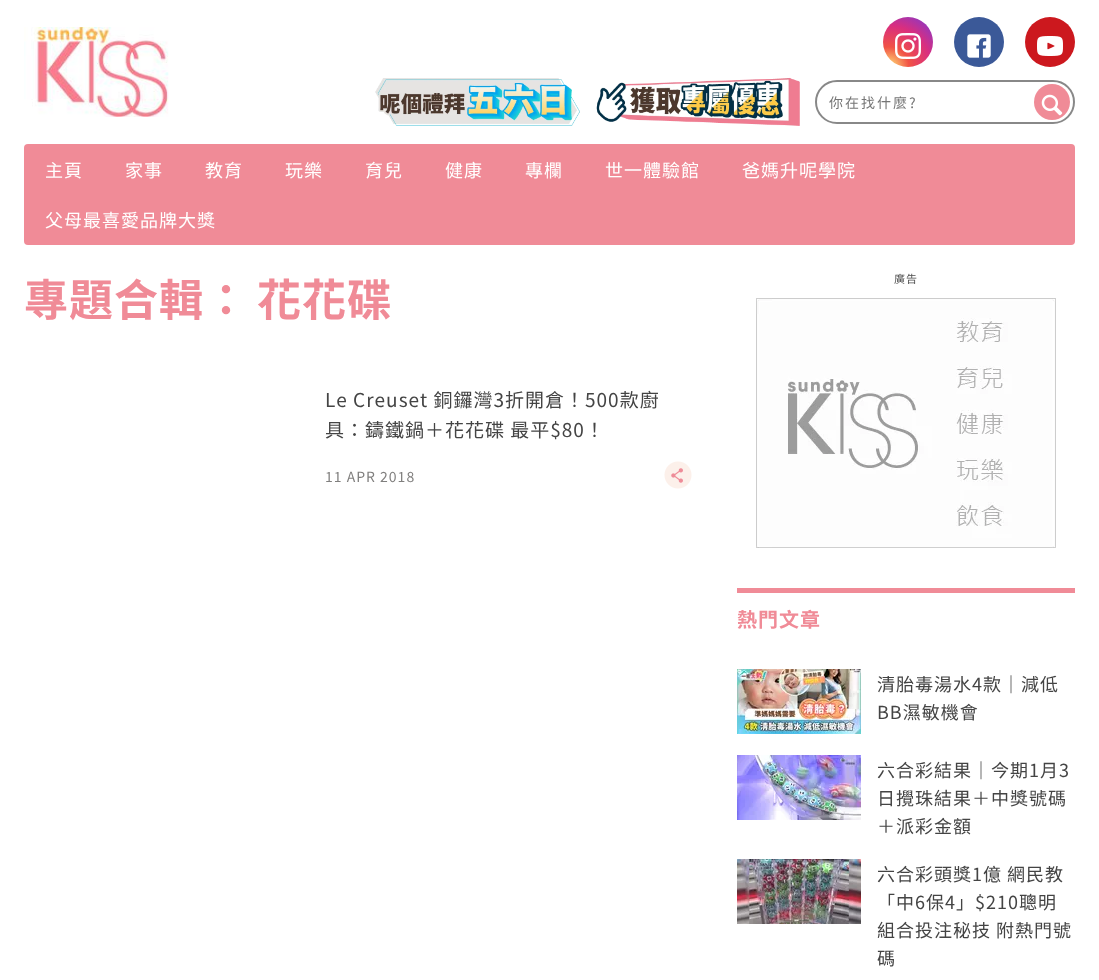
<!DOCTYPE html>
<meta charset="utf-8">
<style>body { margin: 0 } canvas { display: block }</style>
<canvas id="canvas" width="1099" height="980"></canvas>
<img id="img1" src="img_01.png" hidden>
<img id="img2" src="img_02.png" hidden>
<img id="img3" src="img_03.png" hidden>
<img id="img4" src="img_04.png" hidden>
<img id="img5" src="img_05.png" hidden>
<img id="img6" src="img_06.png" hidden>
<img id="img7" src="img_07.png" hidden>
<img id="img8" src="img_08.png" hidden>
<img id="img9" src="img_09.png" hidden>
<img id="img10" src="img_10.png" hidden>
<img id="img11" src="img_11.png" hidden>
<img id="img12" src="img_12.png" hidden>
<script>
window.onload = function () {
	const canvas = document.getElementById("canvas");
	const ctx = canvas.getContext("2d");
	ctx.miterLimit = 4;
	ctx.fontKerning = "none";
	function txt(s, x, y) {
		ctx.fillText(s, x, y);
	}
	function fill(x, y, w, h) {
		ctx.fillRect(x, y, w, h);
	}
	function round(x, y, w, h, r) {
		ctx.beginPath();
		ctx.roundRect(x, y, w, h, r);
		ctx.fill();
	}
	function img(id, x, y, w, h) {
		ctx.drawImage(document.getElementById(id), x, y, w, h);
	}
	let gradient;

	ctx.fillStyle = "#FFFFFF";
	fill(0, 0, 1099, 980);
	img("img1", 24, 27, 145, 90);
	gradient = ctx.createRadialGradient(889, 67, 0, 889, 67, 67);
	gradient.addColorStop(0.04, "#FED373");
	gradient.addColorStop(0.3, "#F15245");
	gradient.addColorStop(0.62, "#D92E7F");
	gradient.addColorStop(0.85, "#9B36B7");
	gradient.addColorStop(1, "#515ECF");
	ctx.fillStyle = gradient;
	ctx.beginPath();
	ctx.arc(908, 42, 25, 0, Math.PI * 2);
	ctx.fill();
	img("img2", 895, 33, 26, 26);
	ctx.fillStyle = "#3B5998";
	ctx.beginPath();
	ctx.arc(979, 42, 25, 0, Math.PI * 2);
	ctx.fill();
	img("img3", 967, 34, 24, 24);
	ctx.fillStyle = "#CC181E";
	ctx.beginPath();
	ctx.arc(1050, 42, 25, 0, Math.PI * 2);
	ctx.fill();
	img("img4", 1037, 36, 26, 20);
	img("img5", 375, 78, 205, 48);
	img("img6", 596, 77, 204, 49);
	ctx.beginPath();
	ctx.roundRect(816, 81, 258, 42, 21);
	ctx.strokeStyle = "#888888";
	ctx.lineWidth = 2;
	ctx.stroke();
	ctx.fillStyle = "#F08B97";
	ctx.beginPath();
	ctx.arc(1052, 102, 18, 0, Math.PI * 2);
	ctx.fill();
	img("img7", 1041, 94, 22, 22);
	round(24, 144, 1051, 101, 4);
	img("img8", 664, 461, 28, 28);
	img("img9", 756, 298, 300, 250);
	fill(737, 588, 338, 5);
	img("img10", 737, 669, 124, 65);
	img("img11", 737, 755, 124, 65);
	img("img12", 737, 859, 124, 65);
	ctx.letterSpacing = "2px";
	ctx.font = "14px Noto Sans TC";
	ctx.fillStyle = "#757575";
	txt("你在找什麼?", 829, 108);
	ctx.letterSpacing = "1px";
	ctx.font = "18px Noto Sans TC";
	ctx.fillStyle = "#FFFFFF";
	txt("主頁", 45, 177);
	txt("家事", 125, 177);
	txt("教育", 205, 177);
	txt("玩樂", 285, 177);
	txt("育兒", 365, 177);
	txt("健康", 445, 177);
	txt("專欄", 525, 177);
	txt("世一體驗館", 605, 177);
	txt("爸媽升呢學院", 742, 177);
	txt("父母最喜愛品牌大獎", 45, 227);
	ctx.font = "bold 44px Noto Sans TC";
	ctx.fillStyle = "#F08B97";
	txt("專題合輯：", 24, 316);
	txt("花花碟", 257, 316);
	ctx.font = "19px Noto Sans TC";
	ctx.fillStyle = "#444444";
	txt("Le Creuset 銅鑼灣3折開倉！500款廚", 325, 407);
	txt("具：鑄鐵鍋＋花花碟 最平$80！", 325, 437);
	ctx.font = "14px Noto Sans TC";
	ctx.fillStyle = "#807F7E";
	txt("11 APR 2018", 325, 482);
	ctx.font = "11px Noto Sans TC";
	ctx.fillStyle = "#505050";
	txt("廣告", 894, 283);
	ctx.font = "bold 20px Noto Sans TC";
	ctx.fillStyle = "#F08B97";
	txt("熱門文章", 737, 627);
	ctx.font = "18px Noto Sans TC";
	ctx.fillStyle = "#444444";
	txt("清胎毒湯水4款｜減低", 877, 691);
	txt("BB濕敏機會", 877, 719);
	txt("六合彩結果｜今期1月3", 877, 777);
	txt("日攪珠結果＋中獎號碼", 877, 805);
	txt("＋派彩金額", 877, 833);
	txt("六合彩頭獎1億 網民教", 877, 881);
	txt("「中6保4」$210聰明", 877, 909);
	txt("組合投注秘技 附熱門號", 877, 937);
	txt("碼", 877, 965);
};
</script>
